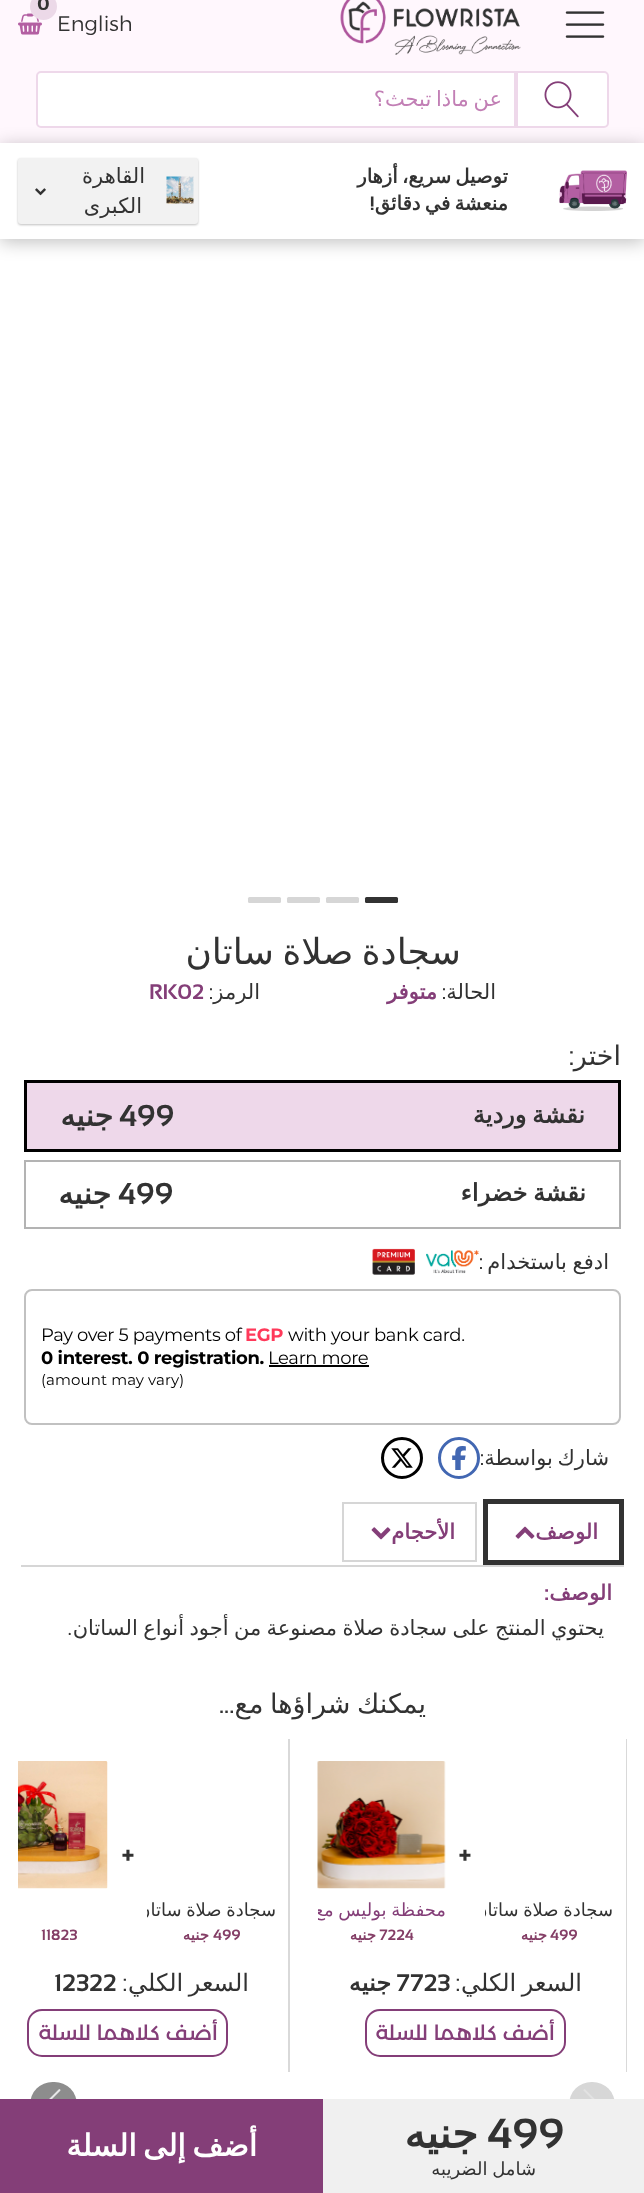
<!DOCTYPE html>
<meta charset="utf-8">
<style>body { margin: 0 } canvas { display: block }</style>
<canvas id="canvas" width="644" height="2193"></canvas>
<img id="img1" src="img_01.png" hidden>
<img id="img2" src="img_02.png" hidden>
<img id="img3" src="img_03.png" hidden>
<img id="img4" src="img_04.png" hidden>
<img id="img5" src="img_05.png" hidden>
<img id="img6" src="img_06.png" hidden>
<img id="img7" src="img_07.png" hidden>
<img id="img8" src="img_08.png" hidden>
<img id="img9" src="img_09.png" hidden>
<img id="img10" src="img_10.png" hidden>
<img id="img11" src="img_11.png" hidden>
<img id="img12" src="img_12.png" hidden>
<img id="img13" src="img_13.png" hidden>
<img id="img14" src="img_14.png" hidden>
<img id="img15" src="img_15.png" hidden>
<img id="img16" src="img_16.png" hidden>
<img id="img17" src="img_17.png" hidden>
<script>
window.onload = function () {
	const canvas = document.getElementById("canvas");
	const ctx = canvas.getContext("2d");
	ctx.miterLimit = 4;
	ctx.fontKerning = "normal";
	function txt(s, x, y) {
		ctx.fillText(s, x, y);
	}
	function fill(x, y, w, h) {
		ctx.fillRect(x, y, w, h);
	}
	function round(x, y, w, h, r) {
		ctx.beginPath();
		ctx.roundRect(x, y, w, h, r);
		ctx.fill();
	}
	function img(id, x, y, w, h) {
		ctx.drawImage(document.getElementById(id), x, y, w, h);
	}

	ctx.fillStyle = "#FFFFFF";
	fill(0, 0, 644, 2193);
	ctx.fillStyle = "#FFF7FD";
	fill(0, 0, 644, 143);
	img("img1", 565, 11, 40, 27);
	img("img2", 340, 0, 181, 55);
	img("img3", 18, 13, 24, 22);
	ctx.fillStyle = "#ECD9E8";
	ctx.beginPath();
	ctx.arc(43.5, 6.5, 13.5, 0, Math.PI * 2);
	ctx.fill();
	ctx.fillStyle = "rgba(0, 0, 0, 0.25)";
	ctx.filter = "blur(9px)";
	ctx.beginPath();
	ctx.rect(0, 146, 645, 96);
	ctx.fill();
	ctx.filter = "none";
	ctx.fillStyle = "#FFFFFF";
	ctx.beginPath();
	ctx.roundRect(517, 72, 91, 55, [0, 4, 4, 0]);
	ctx.fill();
	ctx.strokeStyle = "#EED8EA";
	ctx.lineWidth = 2;
	ctx.stroke();
	img("img4", 544, 81, 35, 37);
	ctx.beginPath();
	ctx.roundRect(37, 72, 478, 55, [4, 0, 0, 4]);
	ctx.fill();
	ctx.stroke();
	fill(0, 143, 644, 96);
	img("img5", 559, 170, 68, 41);
	ctx.fillStyle = "rgba(0, 0, 0, 0.25)";
	ctx.filter = "blur(1px)";
	ctx.beginPath();
	ctx.roundRect(18, 159, 180, 66, 3);
	ctx.fill();
	ctx.filter = "none";
	ctx.fillStyle = "#F2F2F2";
	round(18, 158, 180, 66, 3);
	img("img6", 166, 176, 28, 28);
	img("img7", 35, 188, 11, 8);
	ctx.fillStyle = "#323232";
	round(365, 897, 33, 6, 1.5);
	ctx.fillStyle = "#D6D6D6";
	round(326, 897, 33, 6, 1.5);
	round(287, 897, 33, 6, 1.5);
	round(248, 897, 33, 6, 1.5);
	ctx.fillStyle = "#EED8EA";
	ctx.beginPath();
	ctx.rect(25.5, 1081.5, 594, 69);
	ctx.fill();
	ctx.strokeStyle = "#000000";
	ctx.lineWidth = 3;
	ctx.stroke();
	ctx.strokeStyle = "#B3B3B3";
	ctx.lineWidth = 2;
	ctx.strokeRect(25, 1161, 595, 67);
	img("img8", 426, 1250, 53, 24);
	img("img9", 372, 1248, 43, 27);
	ctx.beginPath();
	ctx.roundRect(25, 1290, 595, 134, 7);
	ctx.strokeStyle = "#C1C1C1";
	ctx.stroke();
	ctx.fillStyle = "#000000";
	fill(269, 1365, 100, 2);
	ctx.beginPath();
	ctx.arc(459, 1458, 19.5, 0, Math.PI * 2);
	ctx.strokeStyle = "#4267B2";
	ctx.lineWidth = 3;
	ctx.stroke();
	img("img10", 452, 1446, 14, 24);
	ctx.beginPath();
	ctx.arc(402, 1458, 19.5, 0, Math.PI * 2);
	ctx.strokeStyle = "#000000";
	ctx.stroke();
	img("img11", 391, 1448, 22, 20);
	ctx.fillStyle = "#D7D7D7";
	round(569, 2082, 46, 45, 22.5);
	ctx.fillStyle = "#F0F0F0";
	fill(323, 2099, 321, 94);
	ctx.fillStyle = "#8D8D8D";
	round(30, 2082, 47, 45, 22.5);
	ctx.fillStyle = "#843E78";
	fill(0, 2099, 323, 94);
	ctx.fillStyle = "#D6D6D6";
	fill(21, 1565, 603, 2);
	ctx.strokeStyle = "#323232";
	ctx.lineWidth = 5;
	ctx.strokeRect(485.5, 1501.5, 136, 61);
	img("img12", 515, 1526, 20, 13);
	ctx.strokeStyle = "#D6D6D6";
	ctx.lineWidth = 2;
	ctx.strokeRect(343, 1503, 133, 58);
	img("img13", 371, 1527, 20, 13);
	ctx.fillStyle = "#D9D9D9";
	fill(626, 1739, 1, 333);
	img("img14", 317, 1761, 129, 128);
	ctx.beginPath();
	ctx.roundRect(366, 2010, 199, 46, 14);
	ctx.strokeStyle = "#843E78";
	ctx.stroke();
	fill(288, 1739, 2, 333);
	img("img15", 18, 1761, 90, 128);
	ctx.beginPath();
	ctx.roundRect(28, 2010, 199, 46, 14);
	ctx.stroke();
	img("img16", 583, 2089, 12, 10);
	img("img17", 49, 2089, 12, 10);
	ctx.font = "600 18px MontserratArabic";
	ctx.fillStyle = "#323232";
	txt("0", 37, 10);
	ctx.font = "300 21px MontserratArabic";
	txt("English", 57, 31);
	ctx.wordSpacing = "-2px";
	ctx.direction = "rtl";
	ctx.font = "21px DejaVu Sans";
	ctx.fillStyle = "#C27FB5";
	txt("عن ماذا تبحث؟", 502, 106);
	ctx.font = "bold 19.5px DejaVu Sans";
	ctx.fillStyle = "#323232";
	txt("توصيل سريع، أزهار", 508, 183);
	txt("منعشة في دقائق", 508, 210);
	ctx.wordSpacing = "0px";
	ctx.font = "bold 19.5px Sansation";
	txt("!", 375, 210);
	ctx.font = "21px DejaVu Sans";
	txt("القاهرة", 145, 183);
	txt("الكبرى", 142, 213);
	ctx.wordSpacing = "-3px";
	ctx.font = "36px DejaVu Sans";
	txt("سجادة صلاة ساتان", 461, 964);
	ctx.wordSpacing = "0px";
	ctx.font = "21px DejaVu Sans";
	txt("الحالة", 496, 999);
	ctx.font = "21px Sansation";
	txt(":", 446, 999);
	ctx.font = "bold 21px DejaVu Sans";
	ctx.fillStyle = "#843E78";
	txt("متوفر", 437, 999);
	ctx.font = "21px DejaVu Sans";
	ctx.fillStyle = "#323232";
	txt("الرمز", 260, 999);
	ctx.font = "21px Sansation";
	txt(":", 213, 999);
	ctx.direction = "ltr";
	ctx.font = "bold 21px Sansation";
	ctx.fillStyle = "#843E78";
	txt("RK02", 149, 999);
	ctx.direction = "rtl";
	ctx.font = "27px Sansation";
	ctx.fillStyle = "#323232";
	txt(":", 574, 1065);
	ctx.font = "27px DejaVu Sans";
	txt("اختر", 621, 1065);
	ctx.wordSpacing = "-2px";
	ctx.font = "bold 24px DejaVu Sans";
	txt("نقشة وردية", 585, 1123);
	ctx.wordSpacing = "0px";
	ctx.direction = "ltr";
	ctx.font = "bold 30px Sansation";
	txt("499", 119, 1126);
	ctx.direction = "rtl";
	ctx.font = "bold 30px DejaVu Sans";
	txt("جنيه", 113, 1126);
	ctx.wordSpacing = "-2px";
	ctx.font = "bold 24px DejaVu Sans";
	txt("نقشة خضراء", 586, 1201);
	ctx.wordSpacing = "0px";
	ctx.direction = "ltr";
	ctx.font = "bold 30px Sansation";
	txt("499", 118, 1204);
	ctx.direction = "rtl";
	ctx.font = "bold 30px DejaVu Sans";
	txt("جنيه", 111, 1204);
	ctx.wordSpacing = "-1px";
	ctx.font = "21px DejaVu Sans";
	txt("ادفع باستخدام", 609, 1269);
	ctx.wordSpacing = "0px";
	ctx.font = "21px Sansation";
	txt(":", 483, 1269);
	ctx.letterSpacing = "-0.35px";
	ctx.direction = "ltr";
	ctx.font = "18px Montserrat";
	ctx.fillStyle = "#000000";
	txt("with your bank card.", 288, 1341);
	ctx.font = "bold 18px Montserrat";
	ctx.fillStyle = "#FF395A";
	txt("EGP", 245, 1341);
	ctx.font = "18px Montserrat";
	ctx.fillStyle = "#000000";
	txt("Pay over 5 payments of", 41, 1341);
	txt("Learn more", 268, 1364);
	ctx.font = "bold 18px Montserrat";
	txt("0 interest. 0 registration.", 41, 1364);
	ctx.letterSpacing = "0.1px";
	ctx.font = "15px Montserrat";
	txt("(amount may vary)", 41, 1385);
	ctx.letterSpacing = "0px";
	ctx.wordSpacing = "-2px";
	ctx.direction = "rtl";
	ctx.font = "21px DejaVu Sans";
	ctx.fillStyle = "#323232";
	txt("شارك بواسطة", 609, 1465);
	ctx.wordSpacing = "0px";
	ctx.font = "21px Sansation";
	txt(":", 484, 1465);
	ctx.direction = "ltr";
	ctx.font = "bold 42px Sansation";
	txt("499", 487, 2148);
	ctx.direction = "rtl";
	ctx.font = "bold 42px DejaVu Sans";
	txt("جنيه", 478, 2148);
	ctx.wordSpacing = "-1px";
	ctx.font = "18px DejaVu Sans";
	txt("شامل الضريبه", 536, 2175);
	ctx.wordSpacing = "-3px";
	ctx.font = "bold 30px DejaVu Sans";
	ctx.fillStyle = "#FFFFFF";
	txt("أضف إلى السلة", 257, 2156);
	ctx.wordSpacing = "0px";
	ctx.font = "bold 21px DejaVu Sans";
	ctx.fillStyle = "#843E78";
	txt("الوصف", 598, 1539);
	txt("الأحجام", 455, 1539);
	txt("الوصف", 612, 1600);
	ctx.font = "bold 21px Sansation";
	txt(":", 549, 1600);
	ctx.wordSpacing = "-1.25px";
	ctx.font = "21px DejaVu Sans";
	ctx.fillStyle = "#323232";
	txt("يحتوي المنتج على سجادة صلاة مصنوعة من أجود أنواع الساتان", 604, 1635);
	ctx.wordSpacing = "0px";
	ctx.font = "21px Montserrat";
	txt(".", 72, 1635);
	ctx.wordSpacing = "-2px";
	ctx.font = "27px DejaVu Sans";
	txt("يمكنك شراؤها مع", 426, 1713);
	ctx.wordSpacing = "0px";
	ctx.direction = "ltr";
	ctx.font = "27px Sansation";
	txt("...", 219, 1713);
	ctx.font = "bold 30px Sansation";
	txt("+", 458, 1863);
	ctx.save();
	ctx.beginPath();
	ctx.rect(485, 1898, 129, 24);
	ctx.clip();
	ctx.wordSpacing = "-1px";
	ctx.direction = "rtl";
	ctx.font = "18px DejaVu Sans";
	txt("سجادة صلاة ساتان", 613, 1916);
	ctx.restore();
	ctx.font = "bold 15px Sansation";
	ctx.fillStyle = "#843E66";
	txt("499", 550, 1940);
	ctx.direction = "rtl";
	ctx.font = "bold 15px DejaVu Sans";
	txt("جنيه", 547, 1940);
	ctx.save();
	ctx.beginPath();
	ctx.rect(318, 1898, 128, 24);
	ctx.clip();
	ctx.wordSpacing = "-1px";
	ctx.font = "18px DejaVu Sans";
	ctx.fillStyle = "#843E78";
	txt("محفظة بوليس مع", 446, 1916);
	ctx.restore();
	ctx.direction = "ltr";
	ctx.font = "bold 15px Sansation";
	txt("7224", 379, 1940);
	ctx.direction = "rtl";
	ctx.font = "bold 15px DejaVu Sans";
	txt("جنيه", 376, 1940);
	ctx.wordSpacing = "-2px";
	ctx.font = "24px DejaVu Sans";
	ctx.fillStyle = "#323232";
	txt("السعر الكلي", 582, 1991);
	ctx.wordSpacing = "0px";
	ctx.direction = "ltr";
	ctx.font = "24px Sansation";
	txt(":", 455, 1991);
	ctx.font = "bold 24px Sansation";
	txt("7723", 396, 1991);
	ctx.direction = "rtl";
	ctx.font = "bold 24px DejaVu Sans";
	txt("جنيه", 391, 1991);
	ctx.font = "21px MontserratArabic";
	ctx.fillStyle = "#843E78";
	txt("أضف كلاهما للسلة", 555, 2040);
	ctx.direction = "ltr";
	ctx.font = "bold 30px Sansation";
	ctx.fillStyle = "#323232";
	txt("+", 121, 1863);
	ctx.save();
	ctx.beginPath();
	ctx.rect(147, 1898, 129, 24);
	ctx.clip();
	ctx.wordSpacing = "-1px";
	ctx.direction = "rtl";
	ctx.font = "18px DejaVu Sans";
	txt("سجادة صلاة ساتان", 276, 1916);
	ctx.restore();
	ctx.font = "bold 15px Sansation";
	ctx.fillStyle = "#843E66";
	txt("499", 213, 1940);
	ctx.direction = "rtl";
	ctx.font = "bold 15px DejaVu Sans";
	txt("جنيه", 209, 1940);
	ctx.direction = "ltr";
	ctx.font = "bold 15px Sansation";
	txt("11823", 41, 1940);
	ctx.wordSpacing = "-2px";
	ctx.direction = "rtl";
	ctx.font = "24px DejaVu Sans";
	ctx.fillStyle = "#323232";
	txt("السعر الكلي", 249, 1991);
	ctx.wordSpacing = "0px";
	ctx.direction = "ltr";
	ctx.font = "24px Sansation";
	txt(":", 122, 1991);
	ctx.font = "bold 24px Sansation";
	txt("12322", 54, 1991);
	ctx.direction = "rtl";
	ctx.font = "21px MontserratArabic";
	ctx.fillStyle = "#843E78";
	txt("أضف كلاهما للسلة", 218, 2040);
};
</script>
